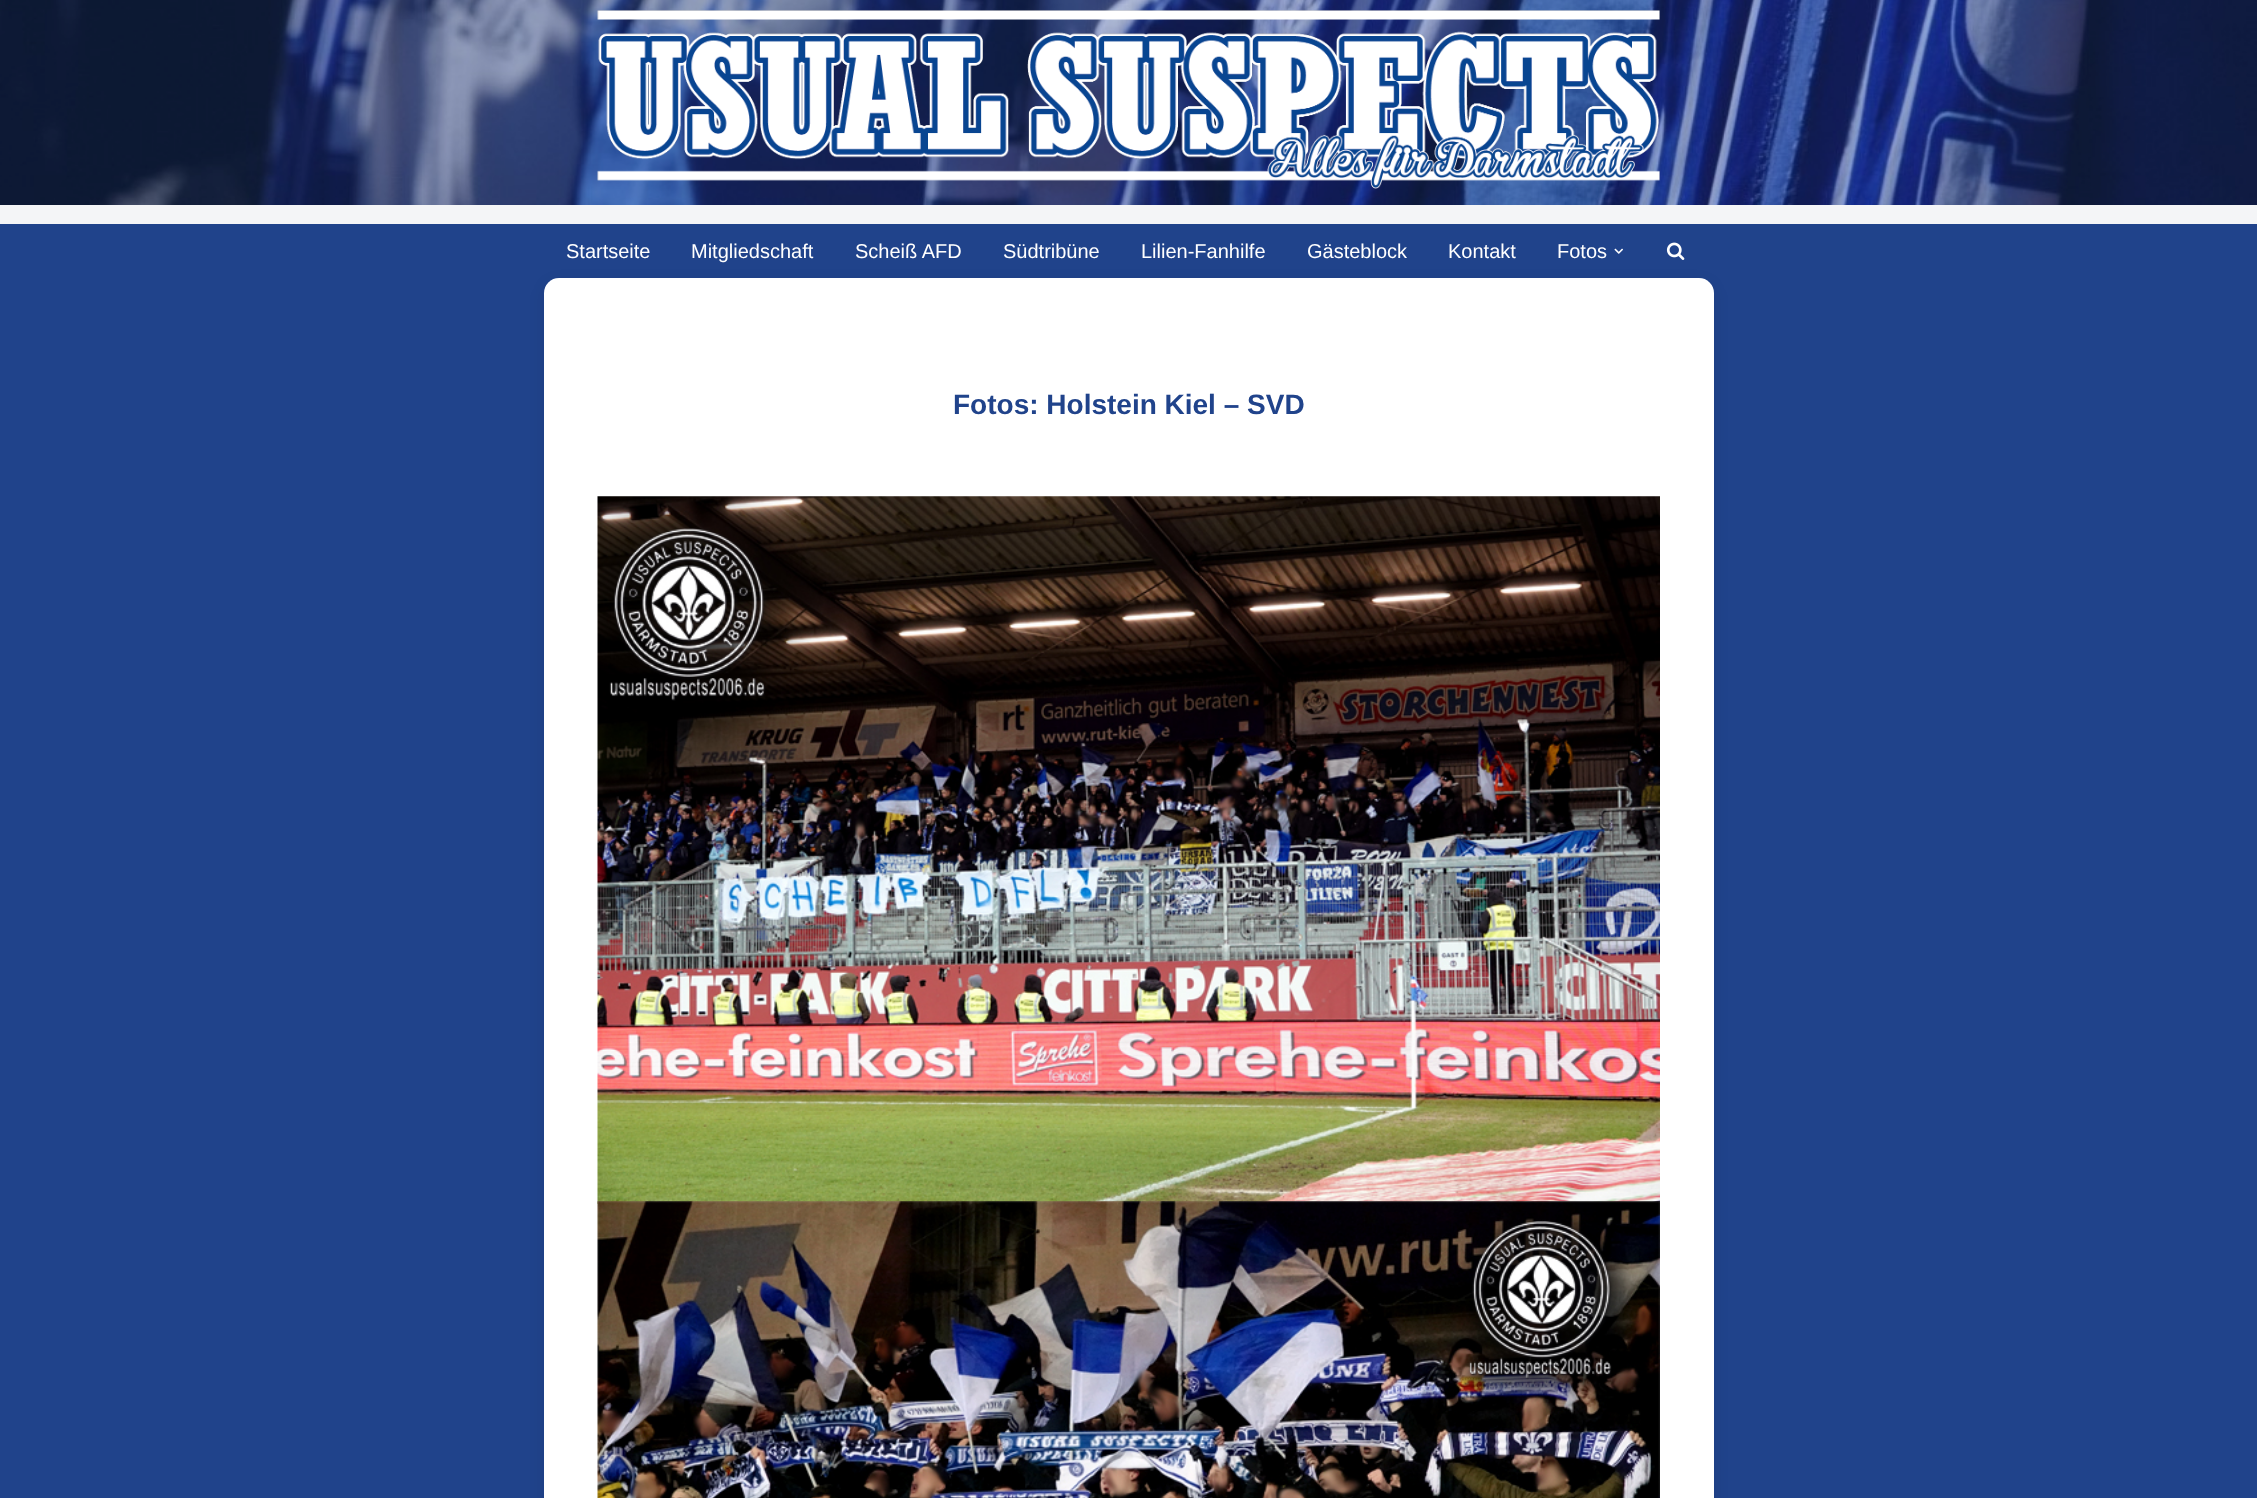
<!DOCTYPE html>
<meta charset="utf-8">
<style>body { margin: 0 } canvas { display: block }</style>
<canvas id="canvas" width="2257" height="1498"></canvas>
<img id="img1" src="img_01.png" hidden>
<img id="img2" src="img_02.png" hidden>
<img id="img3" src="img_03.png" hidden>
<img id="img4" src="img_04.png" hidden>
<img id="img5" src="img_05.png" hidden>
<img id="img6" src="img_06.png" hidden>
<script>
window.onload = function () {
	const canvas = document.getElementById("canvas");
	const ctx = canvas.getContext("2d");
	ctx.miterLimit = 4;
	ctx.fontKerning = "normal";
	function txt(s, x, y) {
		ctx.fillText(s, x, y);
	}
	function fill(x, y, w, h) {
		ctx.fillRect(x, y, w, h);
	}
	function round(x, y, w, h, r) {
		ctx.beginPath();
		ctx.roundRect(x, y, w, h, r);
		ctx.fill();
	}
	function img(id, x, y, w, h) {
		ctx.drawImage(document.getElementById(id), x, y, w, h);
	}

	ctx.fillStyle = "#20438B";
	fill(0, 0, 2257, 1498);
	img("img1", 0, 0, 2257, 205);
	ctx.fillStyle = "#F4F5F7";
	fill(0, 205, 2257, 19);
	img("img2", 597, 10, 1063, 179);
	img("img3", 1614, 248, 9, 6);
	ctx.fillStyle = "rgba(0, 0, 0, 0.08)";
	ctx.filter = "blur(7.5px)";
	ctx.beginPath();
	ctx.roundRect(544, 283, 1170, 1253, 15);
	ctx.fill();
	ctx.filter = "none";
	img("img4", 1666, 242, 19, 18);
	ctx.fillStyle = "#FFFFFF";
	round(544, 278, 1170, 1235, 15);
	img("img5", 597, 496, 1063, 708);
	img("img6", 597, 1201, 1063, 297);
	ctx.font = "20px Liberation Sans";
	txt("Startseite", 566, 258);
	txt("Mitgliedschaft", 691, 258);
	txt("Scheiß AFD", 855, 258);
	txt("Südtribüne", 1003, 258);
	txt("Lilien-Fanhilfe", 1141, 258);
	txt("Gästeblock", 1307, 258);
	txt("Kontakt", 1448, 258);
	txt("Fotos", 1557, 258);
	ctx.font = "bold 28px Liberation Sans";
	ctx.fillStyle = "#20438B";
	txt("Fotos: Holstein Kiel – SVD", 953, 414);
};
</script>
